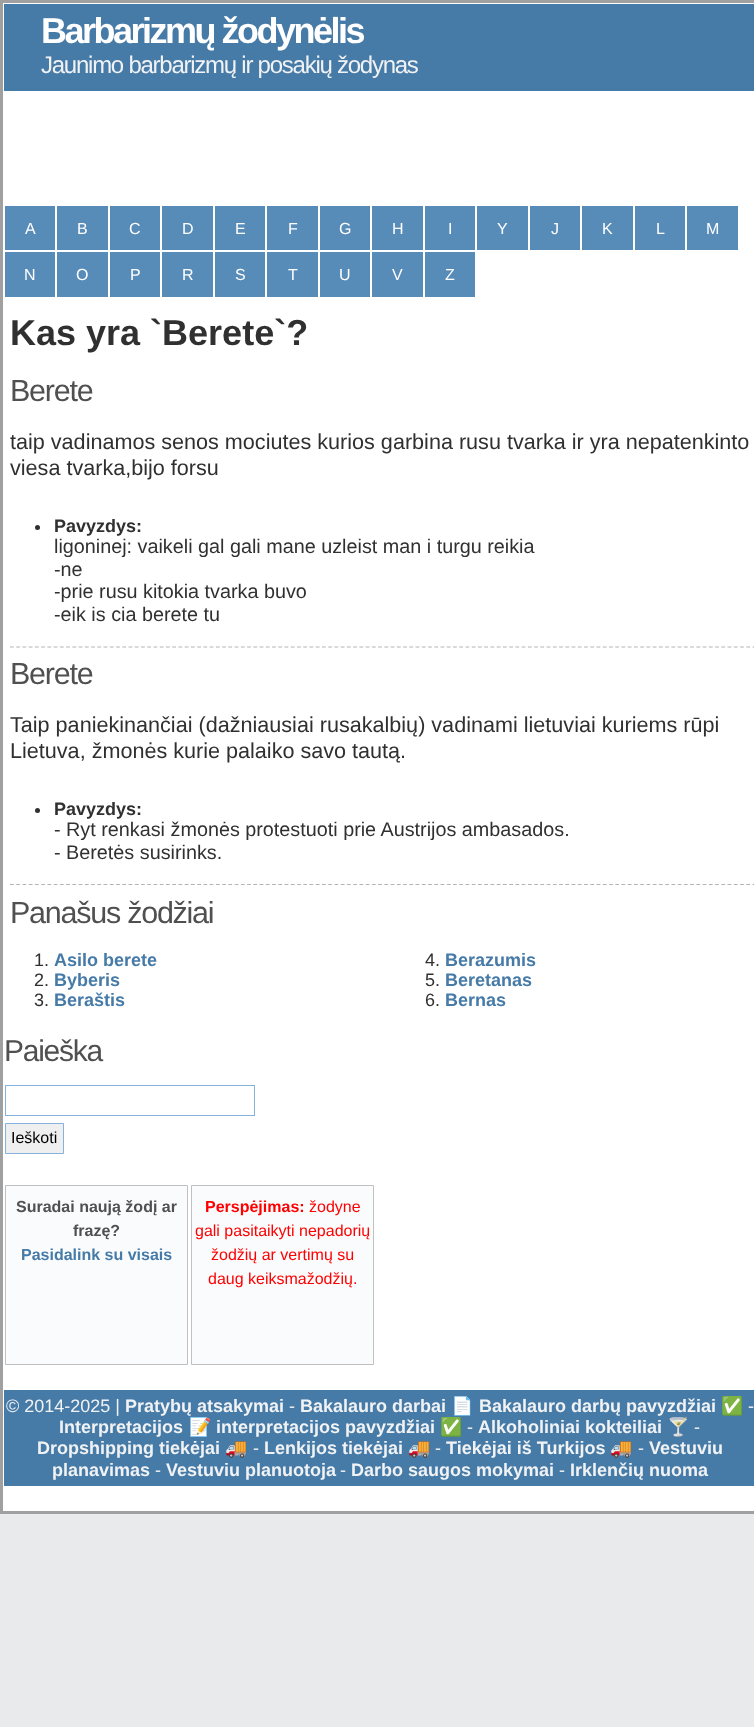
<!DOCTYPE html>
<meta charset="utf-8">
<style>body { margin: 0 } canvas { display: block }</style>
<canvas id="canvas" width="754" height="1727"></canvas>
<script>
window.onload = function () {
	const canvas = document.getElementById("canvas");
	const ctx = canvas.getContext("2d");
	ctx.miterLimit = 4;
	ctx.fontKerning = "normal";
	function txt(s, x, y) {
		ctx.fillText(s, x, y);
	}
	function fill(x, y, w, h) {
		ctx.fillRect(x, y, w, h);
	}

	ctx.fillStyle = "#E8EAEC";
	fill(0, 0, 754, 1727);
	ctx.fillStyle = "#FFFFFF";
	ctx.beginPath();
	ctx.rect(1.5, 1.5, 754, 1511);
	ctx.fill();
	ctx.strokeStyle = "#A0A0A0";
	ctx.lineWidth = 3;
	ctx.stroke();
	ctx.fillStyle = "#467AA7";
	fill(4, 4, 750, 87);
	ctx.fillStyle = "#578BB8";
	fill(5, 206, 50, 44);
	fill(57, 206, 51, 44);
	fill(110, 206, 50, 44);
	fill(162, 206, 51, 44);
	fill(215, 206, 50, 44);
	fill(267, 206, 51, 44);
	fill(320, 206, 50, 44);
	fill(372, 206, 51, 44);
	fill(425, 206, 50, 44);
	fill(477, 206, 51, 44);
	fill(530, 206, 50, 44);
	fill(582, 206, 51, 44);
	fill(635, 206, 50, 44);
	fill(687, 206, 51, 44);
	fill(5, 252, 50, 45);
	fill(57, 252, 51, 45);
	fill(110, 252, 50, 45);
	fill(162, 252, 51, 45);
	fill(215, 252, 50, 45);
	fill(267, 252, 51, 45);
	fill(320, 252, 50, 45);
	fill(372, 252, 51, 45);
	fill(425, 252, 50, 45);
	ctx.fillStyle = "#303030";
	ctx.beginPath();
	ctx.arc(37.5, 527.5, 2.5, 0, Math.PI * 2);
	ctx.fill();
	ctx.beginPath();
	ctx.moveTo(10, 647);
	ctx.lineTo(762.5, 647);
	ctx.strokeStyle = "#B3B3B3";
	ctx.lineWidth = 1.2;
	ctx.setLineDash([3.75, 2.49]);
	ctx.stroke();
	ctx.beginPath();
	ctx.arc(37.5, 810.5, 2.5, 0, Math.PI * 2);
	ctx.fill();
	ctx.beginPath();
	ctx.moveTo(10, 884.5);
	ctx.lineTo(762.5, 884.5);
	ctx.stroke();
	ctx.strokeStyle = "#85B1DE";
	ctx.lineWidth = 1;
	ctx.setLineDash([]);
	ctx.strokeRect(5.5, 1085.5, 249, 30);
	ctx.fillStyle = "#EFEFEF";
	ctx.beginPath();
	ctx.rect(5.5, 1123.5, 58, 30);
	ctx.fill();
	ctx.stroke();
	ctx.fillStyle = "#FAFBFC";
	ctx.beginPath();
	ctx.rect(5.5, 1185.5, 182, 179);
	ctx.fill();
	ctx.strokeStyle = "#C0C0C0";
	ctx.stroke();
	ctx.beginPath();
	ctx.rect(191.5, 1185.5, 182, 179);
	ctx.fill();
	ctx.stroke();
	ctx.fillStyle = "#467AA7";
	fill(4, 1390, 750, 96);
	ctx.letterSpacing = "-2.5px";
	ctx.font = "bold 36px Liberation Sans";
	ctx.fillStyle = "#FFFFFF";
	txt("Barbarizmų žodynėlis", 41, 43);
	ctx.letterSpacing = "-1.25px";
	ctx.font = "24px Liberation Sans";
	ctx.fillStyle = "#F0F2F4";
	txt("Jaunimo barbarizmų ir posakių žodynas", 41, 73);
	ctx.letterSpacing = "0px";
	ctx.font = "16px Liberation Sans";
	ctx.fillStyle = "#FFFFFF";
	txt("A", 25, 234);
	txt("B", 77, 234);
	txt("C", 129, 234);
	txt("D", 182, 234);
	txt("E", 235, 234);
	txt("F", 288, 234);
	txt("G", 339, 234);
	txt("H", 392, 234);
	txt("I", 448, 234);
	txt("Y", 497, 234);
	txt("J", 551, 234);
	txt("K", 602, 234);
	txt("L", 656, 234);
	txt("M", 706, 234);
	txt("N", 24, 280);
	txt("O", 76, 280);
	txt("P", 130, 280);
	txt("R", 182, 280);
	txt("S", 235, 280);
	txt("T", 288, 280);
	txt("U", 339, 280);
	txt("V", 392, 280);
	txt("Z", 445, 280);
	ctx.font = "bold 36px Liberation Sans";
	ctx.fillStyle = "#303030";
	txt("Kas yra `Berete`?", 10, 345);
	ctx.letterSpacing = "-1.25px";
	ctx.font = "30.5px Liberation Sans";
	ctx.fillStyle = "#505050";
	txt("Berete", 10, 401);
	ctx.letterSpacing = "0px";
	ctx.font = "21.6px Liberation Sans";
	ctx.fillStyle = "#303030";
	txt("taip vadinamos senos mociutes kurios garbina rusu tvarka ir yra nepatenkinto", 10, 449);
	txt("viesa tvarka,bijo forsu", 10, 475);
	ctx.font = "bold 18px Liberation Sans";
	txt("Pavyzdys:", 54, 532);
	ctx.font = "19.8px Liberation Sans";
	txt("ligoninej: vaikeli gal gali mane uzleist man i turgu reikia", 54, 553);
	txt("-ne", 54, 576);
	txt("-prie rusu kitokia tvarka buvo", 54, 598);
	txt("-eik is cia berete tu", 54, 621);
	ctx.letterSpacing = "-1.25px";
	ctx.font = "30.5px Liberation Sans";
	ctx.fillStyle = "#505050";
	txt("Berete", 10, 684);
	ctx.letterSpacing = "0px";
	ctx.font = "21.6px Liberation Sans";
	ctx.fillStyle = "#303030";
	txt("Taip paniekinančiai (dažniausiai rusakalbių) vadinami lietuviai kuriems rūpi", 10, 732);
	txt("Lietuva, žmonės kurie palaiko savo tautą.", 10, 758);
	ctx.font = "bold 18px Liberation Sans";
	txt("Pavyzdys:", 54, 815);
	ctx.font = "19.8px Liberation Sans";
	txt("- Ryt renkasi žmonės protestuoti prie Austrijos ambasados.", 54, 836);
	txt("- Beretės susirinks.", 54, 859);
	ctx.letterSpacing = "-1.25px";
	ctx.font = "30.5px Liberation Sans";
	ctx.fillStyle = "#505050";
	txt("Panašus žodžiai", 10, 923);
	ctx.letterSpacing = "0px";
	ctx.font = "18px Liberation Sans";
	ctx.fillStyle = "#303030";
	txt("1.", 34, 966);
	ctx.font = "bold 18px Liberation Sans";
	ctx.fillStyle = "#467AA7";
	txt("Asilo berete", 54, 966);
	ctx.font = "18px Liberation Sans";
	ctx.fillStyle = "#303030";
	txt("2.", 34, 986);
	ctx.font = "bold 18px Liberation Sans";
	ctx.fillStyle = "#467AA7";
	txt("Byberis", 54, 986);
	ctx.font = "18px Liberation Sans";
	ctx.fillStyle = "#303030";
	txt("3.", 34, 1006);
	ctx.font = "bold 18px Liberation Sans";
	ctx.fillStyle = "#467AA7";
	txt("Beraštis", 54, 1006);
	ctx.font = "18px Liberation Sans";
	ctx.fillStyle = "#303030";
	txt("4.", 425, 966);
	ctx.font = "bold 18px Liberation Sans";
	ctx.fillStyle = "#467AA7";
	txt("Berazumis", 445, 966);
	ctx.font = "18px Liberation Sans";
	ctx.fillStyle = "#303030";
	txt("5.", 425, 986);
	ctx.font = "bold 18px Liberation Sans";
	ctx.fillStyle = "#467AA7";
	txt("Beretanas", 445, 986);
	ctx.font = "18px Liberation Sans";
	ctx.fillStyle = "#303030";
	txt("6.", 425, 1006);
	ctx.font = "bold 18px Liberation Sans";
	ctx.fillStyle = "#467AA7";
	txt("Bernas", 445, 1006);
	ctx.letterSpacing = "-1.25px";
	ctx.font = "30px Liberation Sans";
	ctx.fillStyle = "#505050";
	txt("Paieška", 4, 1061);
	ctx.letterSpacing = "0px";
	ctx.font = "16px Liberation Sans";
	ctx.fillStyle = "#000000";
	txt("Ieškoti", 11, 1143);
	ctx.font = "bold 16px Liberation Sans";
	ctx.fillStyle = "#505050";
	txt("Suradai naują žodį ar", 16, 1212);
	txt("frazę?", 73, 1236);
	ctx.fillStyle = "#467AA7";
	txt("Pasidalink su visais", 21, 1260);
	ctx.fillStyle = "#FF0000";
	txt("Perspėjimas:", 205, 1212);
	ctx.font = "16px Liberation Sans";
	txt("žodyne", 309, 1212);
	txt("gali pasitaikyti nepadorių", 195, 1236);
	txt("žodžių ar vertimų su", 211, 1260);
	txt("daug keiksmažodžių.", 208, 1284);
	ctx.font = "18px Liberation Sans";
	ctx.fillStyle = "#F0F2F4";
	txt("© 2014-2025 |", 6, 1412);
	ctx.font = "bold 18px Liberation Sans";
	txt("Pratybų atsakymai", 125, 1412);
	ctx.font = "18px Liberation Sans";
	txt("-", 289, 1412);
	ctx.font = "bold 18px Liberation Sans";
	txt("Bakalauro darbai", 300, 1412);
	ctx.font = "bold 18px Noto Color Emoji";
	txt("📄", 451, 1412);
	ctx.font = "bold 18px Liberation Sans";
	txt("Bakalauro darbų pavyzdžiai", 479, 1412);
	ctx.font = "bold 18px Noto Color Emoji";
	txt("✅", 721, 1412);
	ctx.font = "18px Liberation Sans";
	txt("-", 748, 1412);
	ctx.font = "bold 18px Liberation Sans";
	txt("Interpretacijos", 59, 1433);
	ctx.font = "bold 18px Noto Color Emoji";
	txt("📝", 189, 1433);
	ctx.font = "bold 18px Liberation Sans";
	txt("interpretacijos pavyzdžiai", 216, 1433);
	ctx.font = "bold 18px Noto Color Emoji";
	txt("✅", 440, 1433);
	ctx.font = "18px Liberation Sans";
	txt("-", 467, 1433);
	ctx.font = "bold 18px Liberation Sans";
	txt("Alkoholiniai kokteiliai", 478, 1433);
	ctx.font = "bold 18px Noto Color Emoji";
	txt("🍸", 667, 1433);
	ctx.font = "18px Liberation Sans";
	txt("-", 694, 1433);
	ctx.font = "bold 18px Liberation Sans";
	txt("Dropshipping tiekėjai", 37, 1454);
	ctx.font = "bold 18px Noto Color Emoji";
	txt("🚚", 225, 1454);
	ctx.font = "18px Liberation Sans";
	txt("-", 253, 1454);
	ctx.font = "bold 18px Liberation Sans";
	txt("Lenkijos tiekėjai", 264, 1454);
	ctx.font = "bold 18px Noto Color Emoji";
	txt("🚚", 408, 1454);
	ctx.font = "18px Liberation Sans";
	txt("-", 435, 1454);
	ctx.font = "bold 18px Liberation Sans";
	txt("Tiekėjai iš Turkijos", 446, 1454);
	ctx.font = "bold 18px Noto Color Emoji";
	txt("🚚", 610, 1454);
	ctx.font = "18px Liberation Sans";
	txt("-", 638, 1454);
	ctx.font = "bold 18px Liberation Sans";
	txt("Vestuviu", 649, 1454);
	txt("planavimas", 52, 1476);
	ctx.font = "18px Liberation Sans";
	txt("-", 155, 1476);
	ctx.font = "bold 18px Liberation Sans";
	txt("Vestuviu planuotoja", 166, 1476);
	ctx.font = "18px Liberation Sans";
	txt("-", 340, 1476);
	ctx.font = "bold 18px Liberation Sans";
	txt("Darbo saugos mokymai", 351, 1476);
	ctx.font = "18px Liberation Sans";
	txt("-", 559, 1476);
	ctx.font = "bold 18px Liberation Sans";
	txt("Irklenčių nuoma", 570, 1476);
};
</script>
